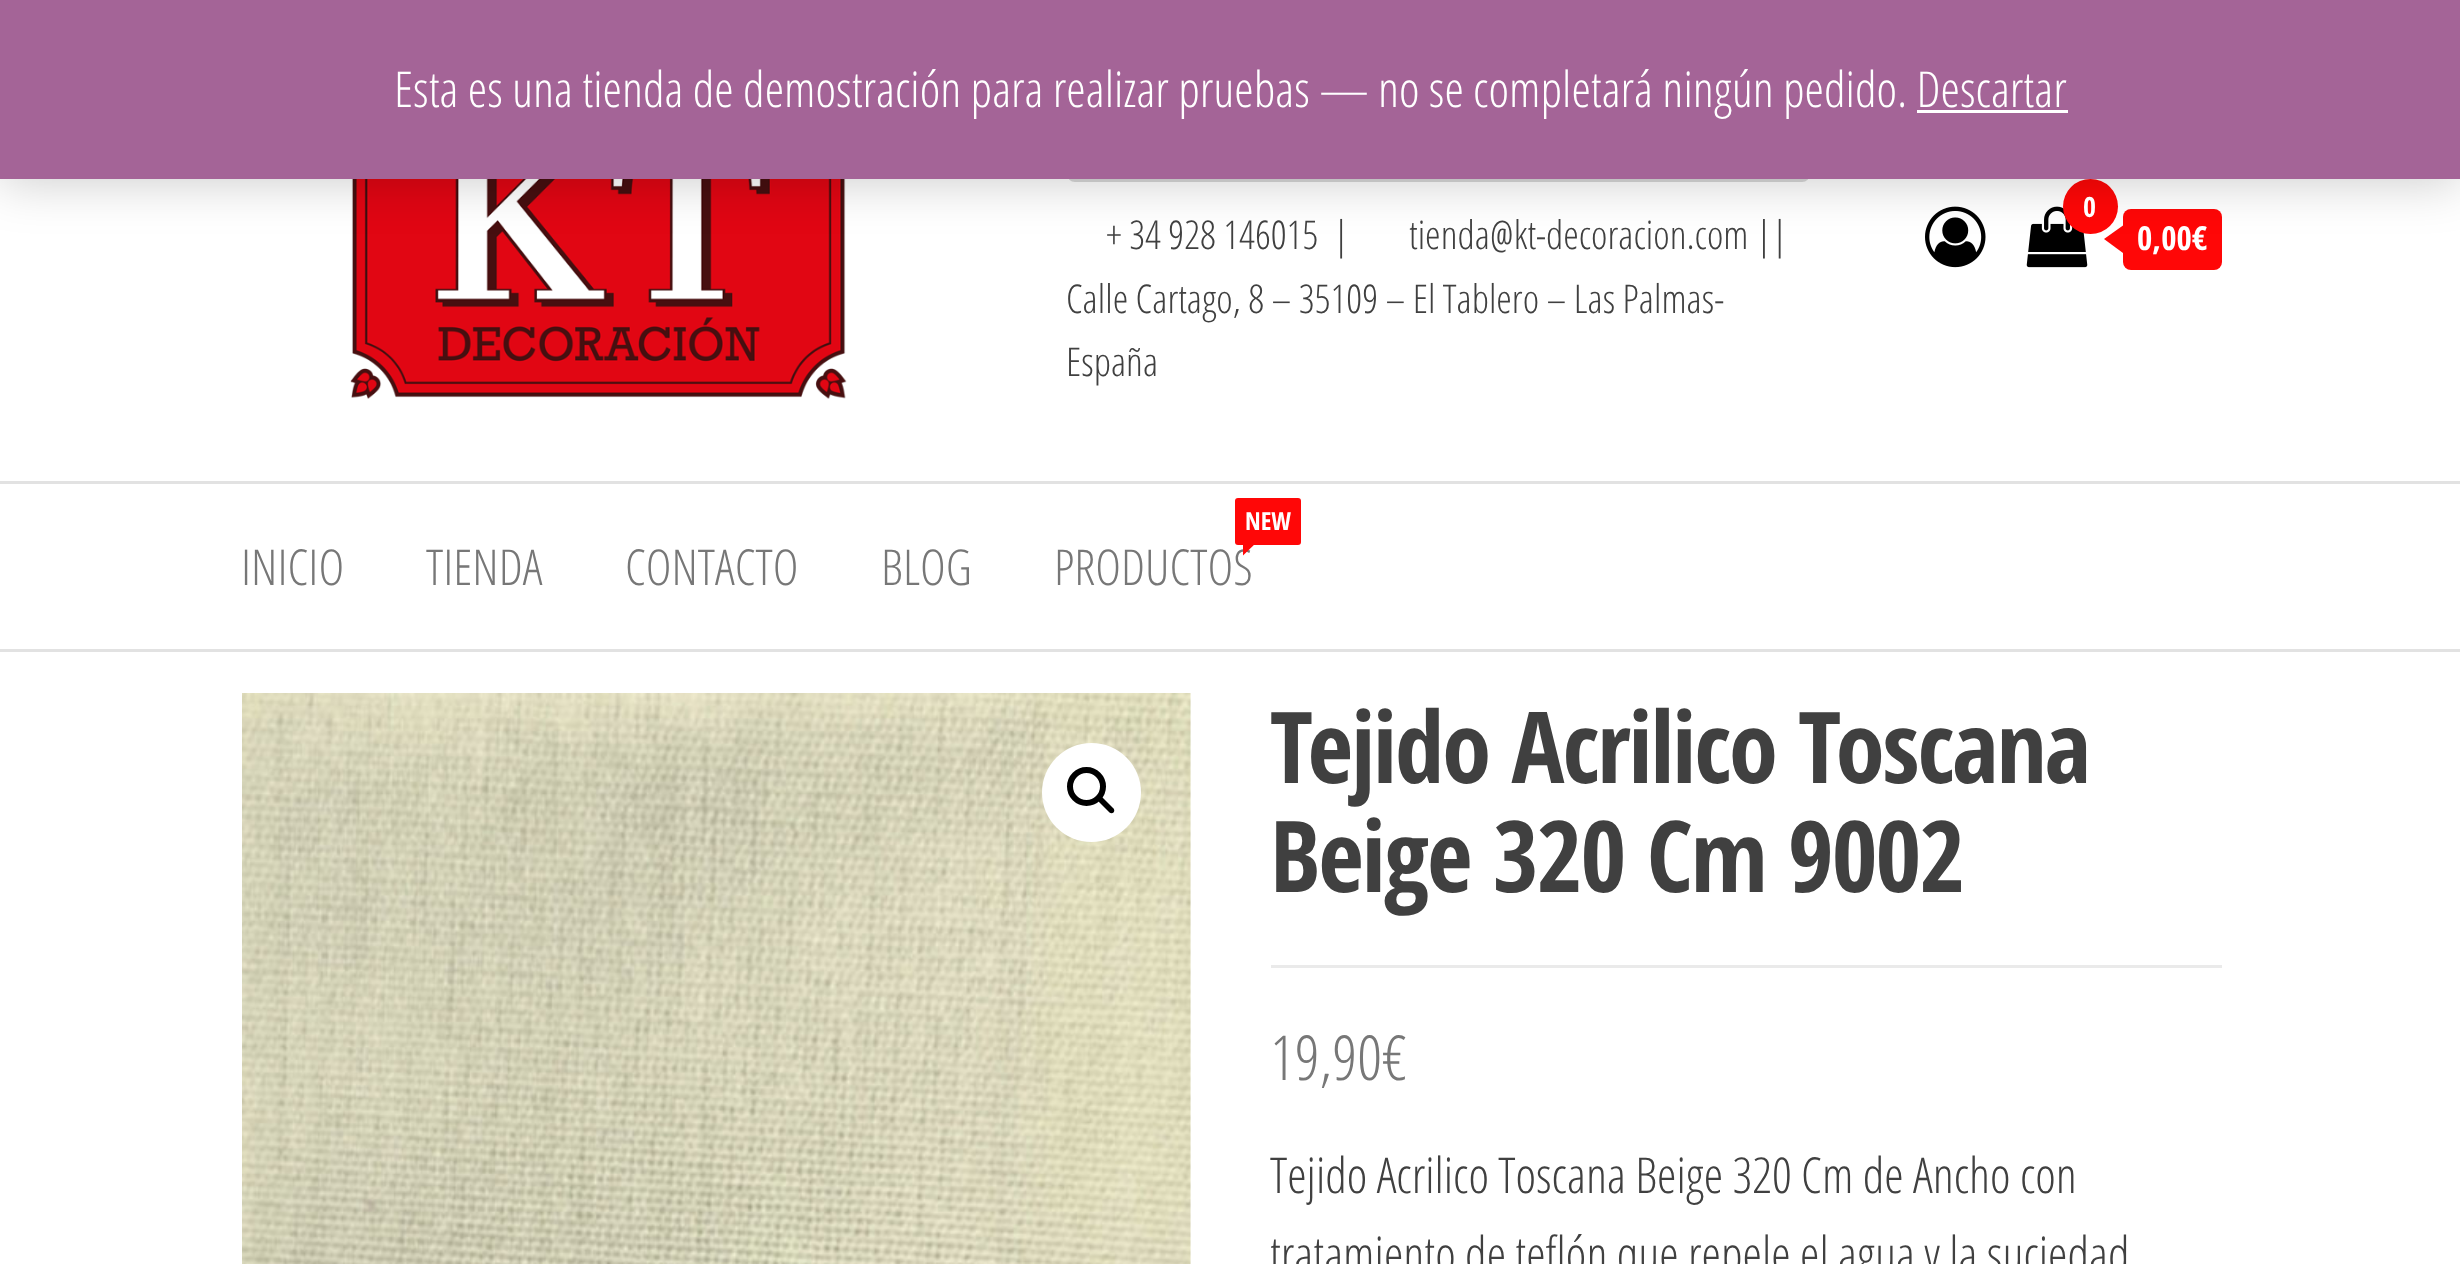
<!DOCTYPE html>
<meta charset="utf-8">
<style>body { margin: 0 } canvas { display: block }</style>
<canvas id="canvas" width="2460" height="1264"></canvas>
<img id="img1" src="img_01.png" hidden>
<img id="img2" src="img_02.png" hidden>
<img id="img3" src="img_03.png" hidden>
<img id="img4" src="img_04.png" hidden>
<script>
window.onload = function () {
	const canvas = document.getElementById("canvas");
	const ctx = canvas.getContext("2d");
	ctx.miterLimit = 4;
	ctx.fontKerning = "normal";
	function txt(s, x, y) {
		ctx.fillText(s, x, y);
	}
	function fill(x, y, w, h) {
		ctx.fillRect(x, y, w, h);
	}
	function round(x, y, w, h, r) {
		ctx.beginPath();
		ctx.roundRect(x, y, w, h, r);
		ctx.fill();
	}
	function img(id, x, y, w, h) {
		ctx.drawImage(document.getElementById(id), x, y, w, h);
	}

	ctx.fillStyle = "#FFFFFF";
	fill(0, 0, 2460, 1264);
	img("img1", 350, 179, 497, 220);
	ctx.beginPath();
	ctx.roundRect(1068.5, 67.5, 740, 113, 6.5);
	ctx.strokeStyle = "#D9D9D9";
	ctx.lineWidth = 3;
	ctx.stroke();
	img("img2", 1925, 206, 61, 62);
	img("img3", 2026, 206, 62, 62);
	ctx.fillStyle = "#FF0707";
	ctx.beginPath();
	ctx.arc(2090.5, 206.5, 27.5, 0, Math.PI * 2);
	ctx.fill();
	round(2123, 209, 99, 61, 8);
	ctx.beginPath();
	ctx.moveTo(2123, 225.5);
	ctx.lineTo(2123, 253);
	ctx.lineTo(2104, 239);
	ctx.closePath();
	ctx.fill();
	ctx.fillStyle = "rgba(0, 0, 0, 0.2)";
	ctx.filter = "blur(25px)";
	ctx.beginPath();
	ctx.rect(0, 3, 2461, 179);
	ctx.fill();
	ctx.filter = "none";
	ctx.fillStyle = "#A46497";
	fill(0, 0, 2460, 179);
	ctx.fillStyle = "#FFFFFF";
	fill(1917, 110, 151, 3);
	ctx.fillStyle = "#E2E2E2";
	fill(0, 481, 2460, 3);
	fill(0, 649, 2460, 3);
	ctx.fillStyle = "#FF0707";
	round(1235, 498, 66, 47, 3);
	img("img4", 242, 693, 949, 571);
	ctx.fillStyle = "#FFFFFF";
	ctx.beginPath();
	ctx.arc(1091.5, 792.5, 49.5, 0, Math.PI * 2);
	ctx.fill();
	ctx.beginPath();
	ctx.arc(1086.5, 786.5, 16.5, 0, Math.PI * 2);
	ctx.strokeStyle = "#000000";
	ctx.lineWidth = 6;
	ctx.stroke();
	ctx.fillStyle = "#000000";
	ctx.beginPath();
	ctx.moveTo(1098, 797);
	ctx.bezierCurveTo(1099, 796, 1101, 796, 1102, 797);
	ctx.lineTo(1113.5, 808.5);
	ctx.bezierCurveTo(1114.5, 809.5, 1114.5, 811.5, 1113.5, 812.5);
	ctx.bezierCurveTo(1112.5, 813.5, 1110.5, 813.5, 1109.5, 812.5);
	ctx.lineTo(1098, 801);
	ctx.bezierCurveTo(1097, 800, 1097, 798, 1098, 797);
	ctx.closePath();
	ctx.fill();
	ctx.fillStyle = "#EAEAEA";
	fill(1271, 965, 951, 3);
	ctx.font = "300 49.5px Open Sans Condensed";
	ctx.fillStyle = "#FFFFFF";
	txt("Esta es una tienda de demostración para realizar pruebas — no se completará ningún pedido. Descartar", 394, 107);
	ctx.font = "300 39.6px Open Sans Condensed";
	ctx.fillStyle = "#404040";
	txt("+ 34 928 146015  |", 1106, 249);
	txt("tienda@kt-decoracion.com ||", 1409, 249);
	txt("Calle Cartago, 8 – 35109 – El Tablero – Las Palmas-", 1066, 313);
	txt("España", 1066, 376);
	ctx.font = "bold 28px Open Sans Condensed";
	ctx.fillStyle = "#FFFFFF";
	txt("0", 2083, 217);
	ctx.font = "bold 33px Open Sans Condensed";
	txt("0,00€", 2137, 250);
	ctx.font = "300 49.5px Open Sans Condensed";
	ctx.fillStyle = "#777777";
	txt("INICIO", 241, 585);
	txt("TIENDA", 426, 585);
	txt("CONTACTO", 625, 585);
	txt("BLOG", 881, 585);
	ctx.font = "bold 25px Open Sans Condensed";
	ctx.fillStyle = "#FFFFFF";
	txt("NEW", 1245, 530);
	ctx.font = "300 49.5px Open Sans Condensed";
	ctx.fillStyle = "#777777";
	txt("PRODUCTOS", 1054, 585);
	ctx.fillStyle = "#FF0707";
	ctx.beginPath();
	ctx.moveTo(1243, 542);
	ctx.lineTo(1257, 542);
	ctx.lineTo(1243, 555.5);
	ctx.closePath();
	ctx.fill();
	ctx.letterSpacing = "-2px";
	ctx.font = "bold 99px Open Sans Condensed";
	ctx.fillStyle = "#404040";
	txt("Tejido Acrilico Toscana", 1270, 783);
	txt("Beige 320 Cm 9002", 1270, 892);
	ctx.letterSpacing = "0px";
	ctx.font = "300 62px Open Sans Condensed";
	ctx.fillStyle = "#777777";
	txt("19,90€", 1270, 1080);
	ctx.font = "300 49.5px Open Sans Condensed";
	ctx.fillStyle = "#404040";
	txt("Tejido Acrilico Toscana Beige 320 Cm de Ancho con", 1270, 1193);
	txt("tratamiento de teflón que repele el agua y la suciedad", 1270, 1272);
};
</script>
